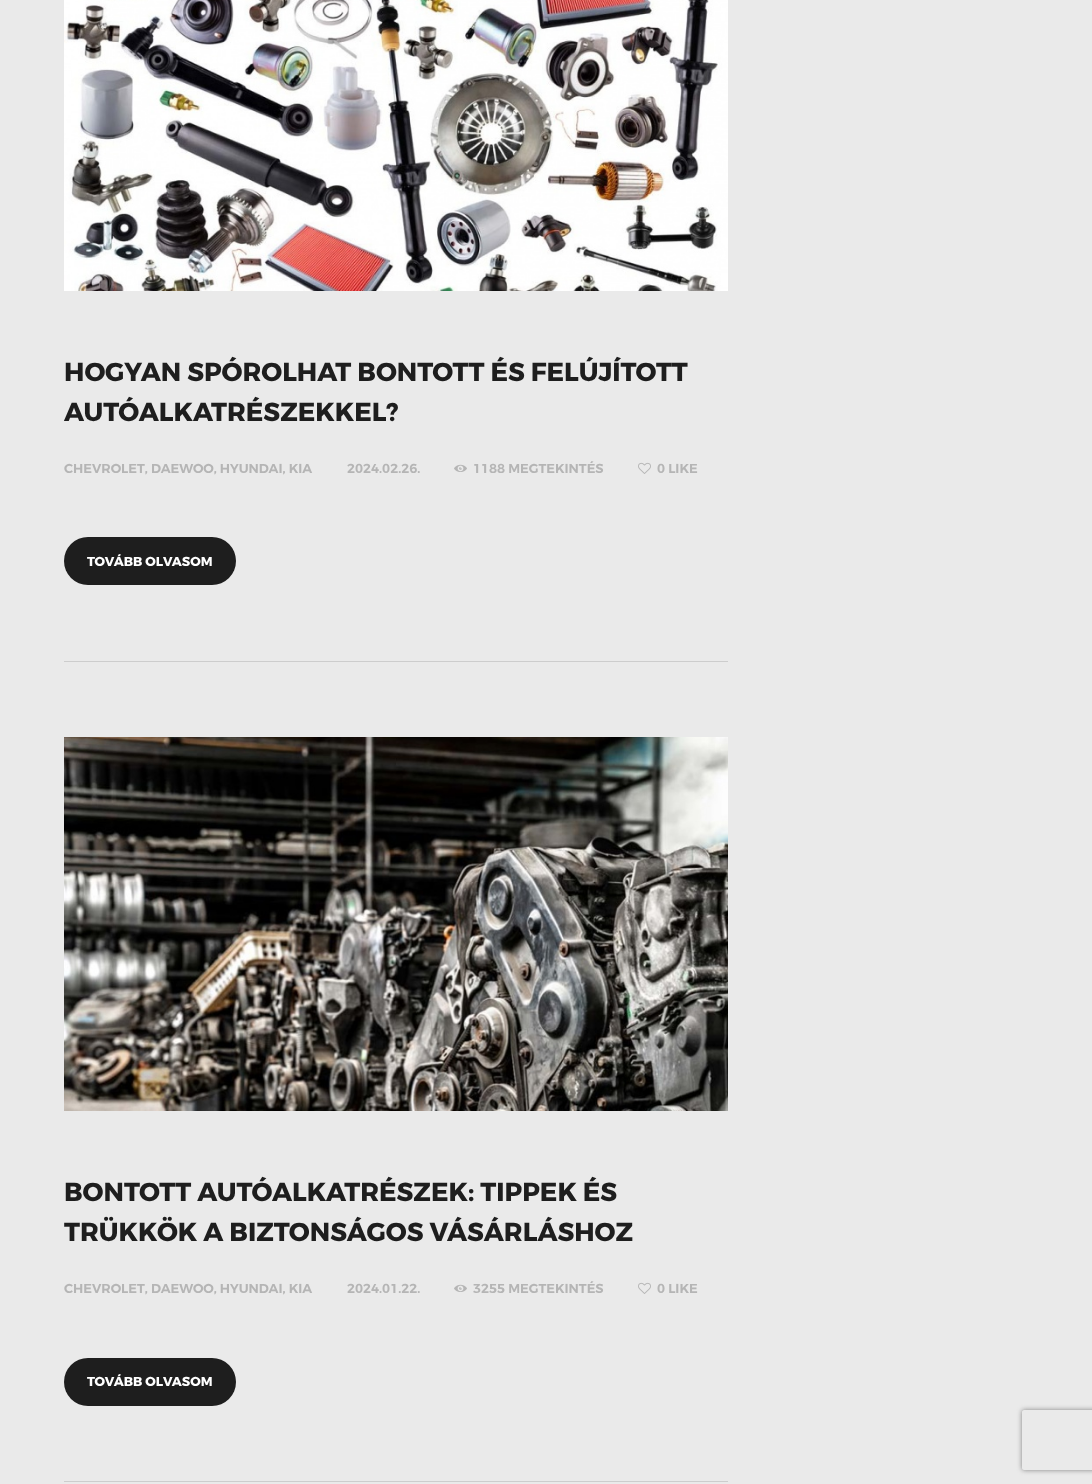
<!DOCTYPE html>
<meta charset="utf-8">
<style>body { margin: 0 } canvas { display: block }</style>
<canvas id="canvas" width="1092" height="1484"></canvas>
<img id="img1" src="img_01.png" hidden>
<img id="img2" src="img_02.png" hidden>
<img id="img3" src="img_03.png" hidden>
<img id="img4" src="img_04.png" hidden>
<script>
window.onload = function () {
	const canvas = document.getElementById("canvas");
	const ctx = canvas.getContext("2d");
	ctx.miterLimit = 4;
	ctx.fontKerning = "normal";
	function txt(s, x, y) {
		ctx.fillText(s, x, y);
	}
	function fill(x, y, w, h) {
		ctx.fillRect(x, y, w, h);
	}
	function round(x, y, w, h, r) {
		ctx.beginPath();
		ctx.roundRect(x, y, w, h, r);
		ctx.fill();
	}
	function img(id, x, y, w, h) {
		ctx.drawImage(document.getElementById(id), x, y, w, h);
	}

	ctx.fillStyle = "#EAEAEA";
	fill(0, 0, 1092, 1484);
	img("img1", 64, 0, 664, 291);
	img("img2", 454, 464, 13, 8);
	img("img3", 638, 462, 13, 12);
	ctx.fillStyle = "#1E1E1E";
	round(64, 537, 172, 48, 24);
	ctx.fillStyle = "#CDCDCD";
	fill(64, 661, 664, 1);
	img("img4", 64, 737, 664, 374);
	img("img2", 454, 1284, 13, 8);
	img("img3", 638, 1282, 13, 12);
	ctx.fillStyle = "#1E1E1E";
	round(64, 1358, 172, 48, 24);
	ctx.fillStyle = "#CDCDCD";
	fill(64, 1481, 664, 1);
	ctx.save();
	ctx.beginPath();
	ctx.moveTo(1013, 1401);
	ctx.lineTo(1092, 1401);
	ctx.lineTo(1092, 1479);
	ctx.lineTo(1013, 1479);
	ctx.closePath();
	ctx.moveTo(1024, 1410);
	ctx.lineTo(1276, 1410);
	ctx.bezierCurveTo(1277, 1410, 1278, 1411, 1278, 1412);
	ctx.lineTo(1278, 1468);
	ctx.bezierCurveTo(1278, 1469, 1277, 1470, 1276, 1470);
	ctx.lineTo(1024, 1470);
	ctx.bezierCurveTo(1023, 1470, 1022, 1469, 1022, 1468);
	ctx.lineTo(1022, 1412);
	ctx.bezierCurveTo(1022, 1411, 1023, 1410, 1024, 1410);
	ctx.closePath();
	ctx.clip("evenodd");
	ctx.fillStyle = "#808080";
	ctx.filter = "blur(2.5px)";
	ctx.beginPath();
	ctx.roundRect(1022, 1410, 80, 60, 2);
	ctx.fill();
	ctx.filter = "none";
	ctx.restore();
	ctx.font = "bold 26px Montserrat";
	ctx.fillStyle = "#1E1E1E";
	txt("HOGYAN SPÓROLHAT BONTOTT ÉS FELÚJÍTOTT", 64, 381);
	txt("AUTÓALKATRÉSZEKKEL?", 64, 421);
	ctx.font = "600 13px Montserrat";
	ctx.fillStyle = "#B5B5B5";
	txt("CHEVROLET, DAEWOO, HYUNDAI, KIA", 64, 473);
	txt("2024.02.26.", 347, 473);
	txt("1188 MEGTEKINTÉS", 473, 473);
	txt("0 LIKE", 657, 473);
	ctx.font = "bold 13px Montserrat";
	ctx.fillStyle = "#FFFFFF";
	txt("TOVÁBB OLVASOM", 87, 566);
	ctx.font = "bold 26px Montserrat";
	ctx.fillStyle = "#1E1E1E";
	txt("BONTOTT AUTÓALKATRÉSZEK: TIPPEK ÉS", 64, 1201);
	txt("TRÜKKÖK A BIZTONSÁGOS VÁSÁRLÁSHOZ", 64, 1241);
	ctx.font = "600 13px Montserrat";
	ctx.fillStyle = "#B5B5B5";
	txt("CHEVROLET, DAEWOO, HYUNDAI, KIA", 64, 1293);
	txt("2024.01.22.", 347, 1293);
	txt("3255 MEGTEKINTÉS", 473, 1293);
	txt("0 LIKE", 657, 1293);
	ctx.font = "bold 13px Montserrat";
	ctx.fillStyle = "#FFFFFF";
	txt("TOVÁBB OLVASOM", 87, 1386);
};
</script>
